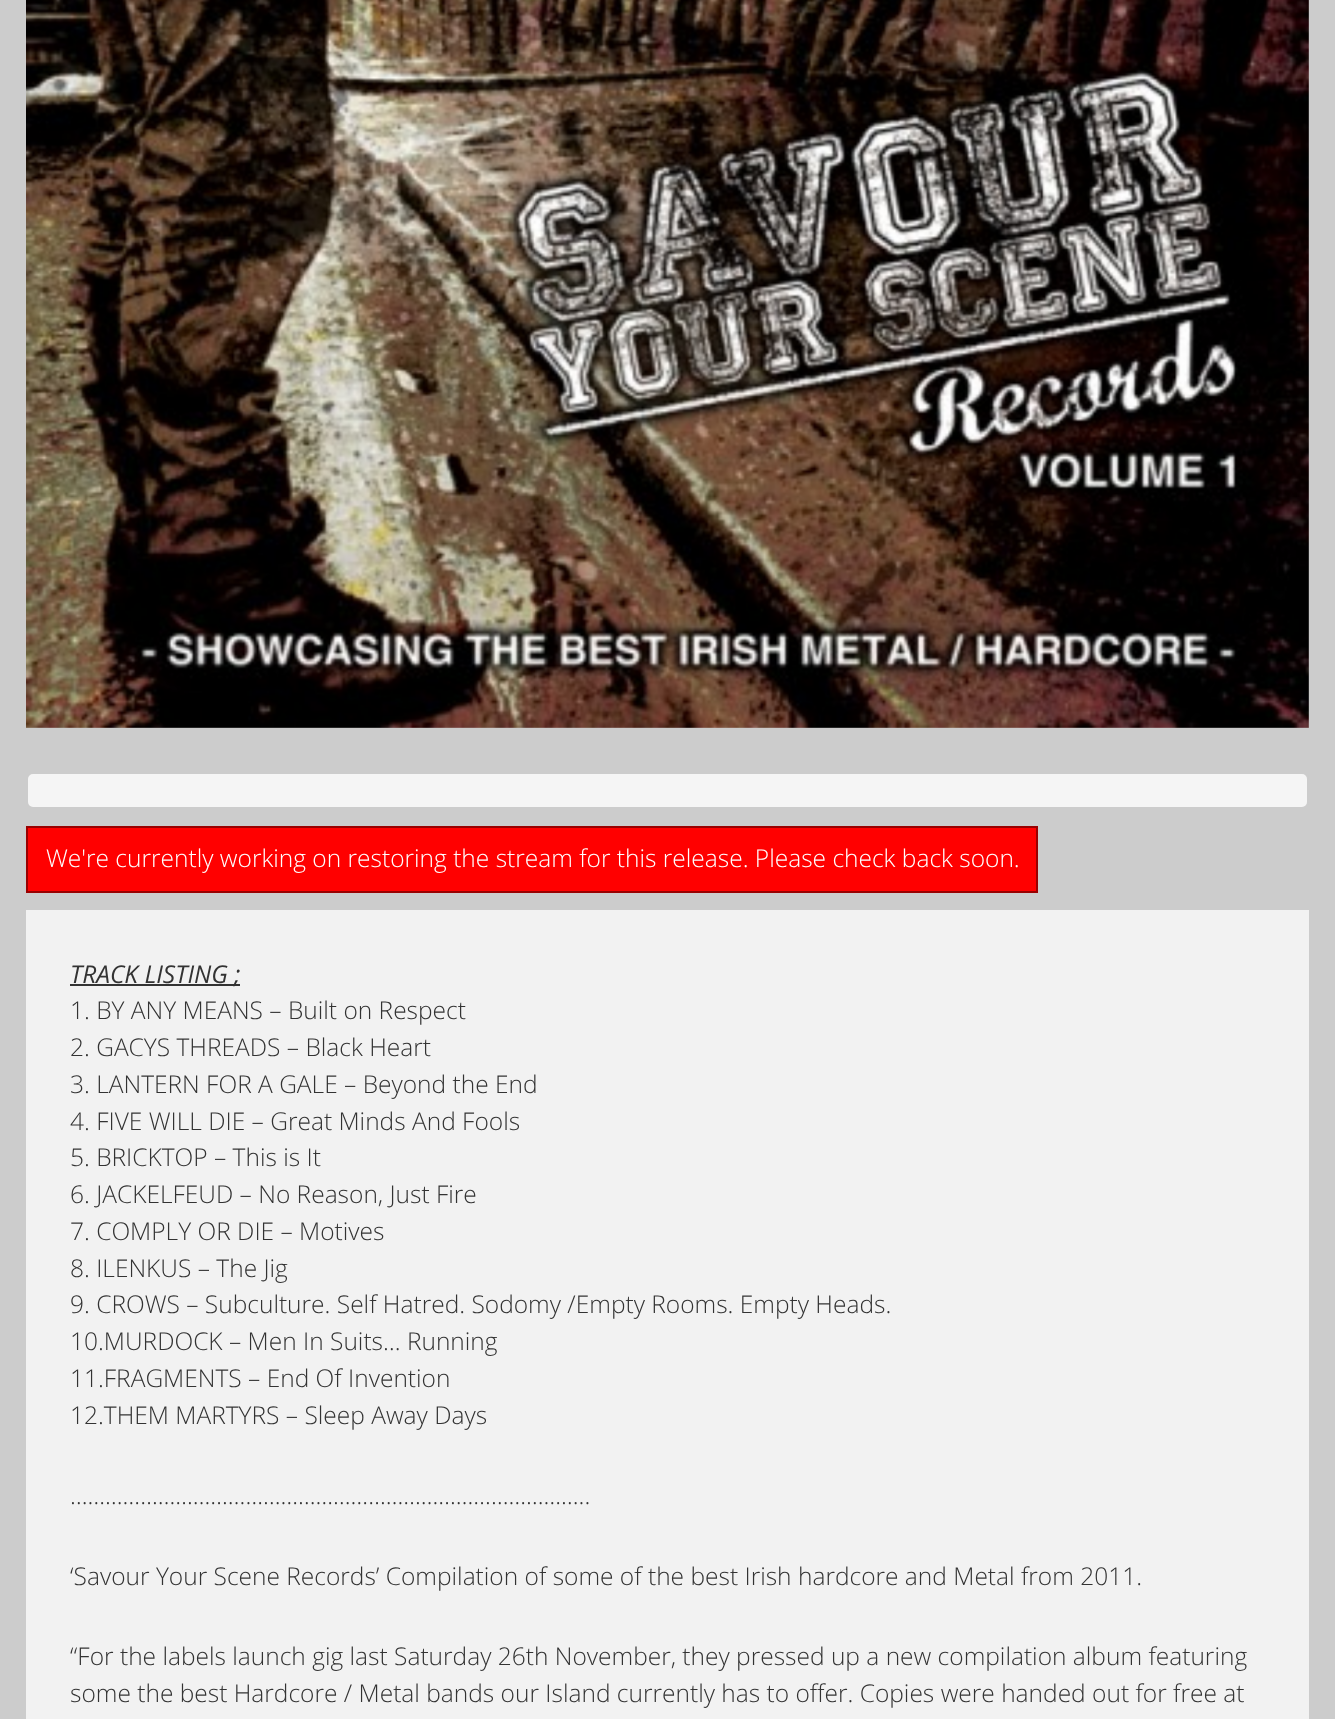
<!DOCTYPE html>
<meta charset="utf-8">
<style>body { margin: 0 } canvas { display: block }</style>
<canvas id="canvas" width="1335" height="1719"></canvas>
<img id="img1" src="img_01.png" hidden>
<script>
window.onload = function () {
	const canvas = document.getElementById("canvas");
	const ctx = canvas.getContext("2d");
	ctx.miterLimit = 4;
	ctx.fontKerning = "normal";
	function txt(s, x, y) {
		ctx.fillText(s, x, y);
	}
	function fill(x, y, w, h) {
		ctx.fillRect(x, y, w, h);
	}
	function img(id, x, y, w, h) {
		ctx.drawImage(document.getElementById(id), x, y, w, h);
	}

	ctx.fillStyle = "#CCCCCC";
	fill(0, 0, 1335, 1719);
	img("img1", 26, 0, 1283, 728);
	ctx.fillStyle = "#F5F5F5";
	ctx.beginPath();
	ctx.roundRect(27, 773, 1281, 35, 6);
	ctx.fill();
	ctx.strokeStyle = "#CCCCCC";
	ctx.lineWidth = 2;
	ctx.stroke();
	ctx.fillStyle = "#FF0000";
	ctx.beginPath();
	ctx.rect(27, 827, 1010, 65);
	ctx.fill();
	ctx.strokeStyle = "#990000";
	ctx.stroke();
	ctx.fillStyle = "#F2F2F2";
	fill(26, 910, 1283, 809);
	ctx.fillStyle = "#333333";
	fill(70, 984, 170, 2);
	ctx.font = "300 24.5px Open Sans";
	ctx.fillStyle = "#FFFFFF";
	txt("We're currently working on restoring the stream for this release. Please check back soon.", 46, 867);
	ctx.font = "italic 24.5px Open Sans";
	ctx.fillStyle = "#333333";
	txt("TRACK LISTING ;", 70, 983);
	ctx.font = "300 24.5px Open Sans";
	txt("1. BY ANY MEANS – Built on Respect", 70, 1019);
	txt("2. GACYS THREADS – Black Heart", 70, 1056);
	txt("3. LANTERN FOR A GALE – Beyond the End", 70, 1093);
	txt("4. FIVE WILL DIE – Great Minds And Fools", 70, 1130);
	txt("5. BRICKTOP – This is It", 70, 1166);
	txt("6. JACKELFEUD – No Reason, Just Fire", 70, 1203);
	txt("7. COMPLY OR DIE – Motives", 70, 1240);
	txt("8. ILENKUS – The Jig", 70, 1277);
	txt("9. CROWS – Subculture. Self Hatred. Sodomy /Empty Rooms. Empty Heads.", 70, 1313);
	txt("10.MURDOCK – Men In Suits… Running", 70, 1350);
	txt("11.FRAGMENTS – End Of Invention", 70, 1387);
	txt("12.THEM MARTYRS – Sleep Away Days", 70, 1424);
	txt("……………………………………………………………………………..", 70, 1504);
	txt("‘Savour Your Scene Records’ Compilation of some of the best Irish hardcore and Metal from 2011.", 70, 1585);
	txt("“For the labels launch gig last Saturday 26th November, they pressed up a new compilation album featuring", 70, 1665);
	txt("some the best Hardcore / Metal bands our Island currently has to offer. Copies were handed out for free at", 70, 1702);
};
</script>
